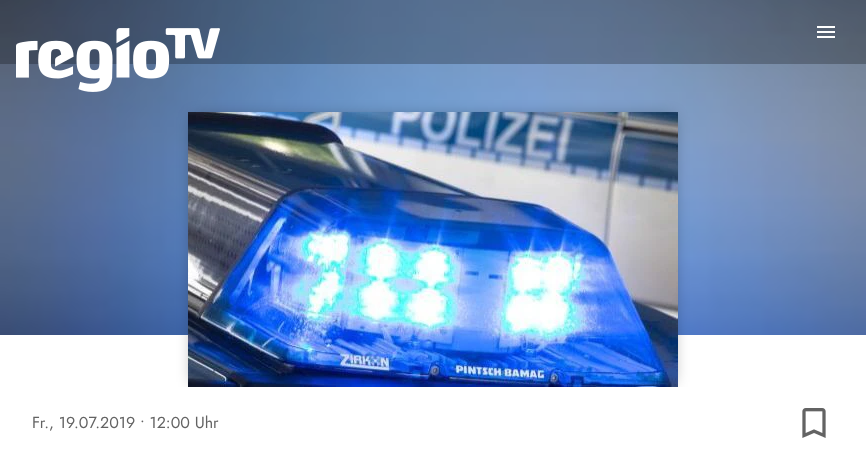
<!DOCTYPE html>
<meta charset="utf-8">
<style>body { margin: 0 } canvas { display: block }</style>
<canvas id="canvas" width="866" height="454"></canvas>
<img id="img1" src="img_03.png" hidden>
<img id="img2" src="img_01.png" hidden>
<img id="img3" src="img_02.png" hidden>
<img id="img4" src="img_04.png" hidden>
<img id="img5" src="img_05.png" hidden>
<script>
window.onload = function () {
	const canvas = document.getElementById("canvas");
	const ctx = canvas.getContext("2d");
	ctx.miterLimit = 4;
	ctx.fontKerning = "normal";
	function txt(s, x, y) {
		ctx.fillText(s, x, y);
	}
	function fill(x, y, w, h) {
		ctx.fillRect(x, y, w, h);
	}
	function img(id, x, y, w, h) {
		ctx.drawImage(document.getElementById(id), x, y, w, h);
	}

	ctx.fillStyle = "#FFFFFF";
	fill(0, 0, 866, 454);
	img("img1", 0, 0, 866, 335);
	ctx.fillStyle = "rgba(0, 0, 0, 0.25)";
	fill(0, 0, 866, 64);
	img("img2", 16, 28, 204, 64);
	img("img3", 817, 26, 18, 12);
	ctx.save();
	ctx.beginPath();
	ctx.rect(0, 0, 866, 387);
	ctx.clip();
	ctx.fillStyle = "rgba(0, 0, 0, 0.4)";
	ctx.filter = "blur(7.5px)";
	ctx.beginPath();
	ctx.rect(193, 117, 480, 265);
	ctx.fill();
	ctx.filter = "none";
	ctx.restore();
	img("img4", 188, 112, 490, 275);
	img("img5", 802, 408, 24, 30);
	ctx.font = "16px Jost";
	ctx.fillStyle = "#636363";
	txt("Fr., 19.07.2019 • 12:00 Uhr", 32, 428);
};
</script>
